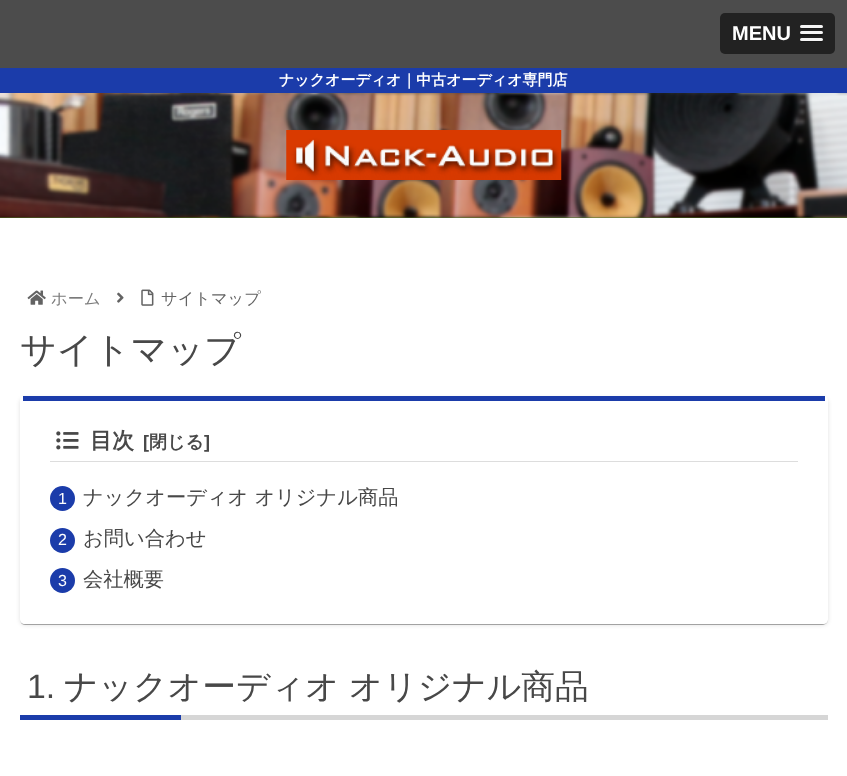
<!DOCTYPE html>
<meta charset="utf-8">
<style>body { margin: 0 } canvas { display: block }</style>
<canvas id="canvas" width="847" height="776"></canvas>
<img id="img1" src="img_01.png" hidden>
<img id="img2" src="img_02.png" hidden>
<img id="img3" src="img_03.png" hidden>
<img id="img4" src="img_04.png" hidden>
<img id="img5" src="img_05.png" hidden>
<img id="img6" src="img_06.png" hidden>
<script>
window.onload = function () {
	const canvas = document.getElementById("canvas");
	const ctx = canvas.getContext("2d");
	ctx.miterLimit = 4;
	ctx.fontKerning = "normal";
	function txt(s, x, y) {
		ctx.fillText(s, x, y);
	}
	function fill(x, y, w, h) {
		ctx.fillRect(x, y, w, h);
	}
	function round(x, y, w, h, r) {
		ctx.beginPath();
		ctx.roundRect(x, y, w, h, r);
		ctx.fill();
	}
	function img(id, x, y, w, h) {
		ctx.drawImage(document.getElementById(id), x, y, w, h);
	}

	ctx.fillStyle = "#FFFFFF";
	fill(0, 0, 847, 776);
	ctx.fillStyle = "#4C4C4C";
	fill(0, 0, 847, 68);
	ctx.fillStyle = "#222222";
	round(720, 13, 115, 41, 5);
	ctx.fillStyle = "#1A1A1A";
	ctx.beginPath();
	ctx.moveTo(800, 27);
	ctx.bezierCurveTo(799, 29.5, 804, 29, 805, 29);
	ctx.lineTo(818, 29);
	ctx.bezierCurveTo(819, 29, 822.5, 30, 823, 28);
	ctx.bezierCurveTo(823, 27.5, 823, 26.5, 822.5, 26.5);
	ctx.bezierCurveTo(822.5, 27, 822, 27.5, 821, 27.5);
	ctx.lineTo(801, 27.5);
	ctx.bezierCurveTo(801, 27.5, 800.5, 27, 800, 27);
	ctx.closePath();
	ctx.fill();
	ctx.fillStyle = "#F5F5F5";
	round(800, 25, 23, 3, 1.5);
	ctx.fillStyle = "#1A1A1A";
	ctx.beginPath();
	ctx.moveTo(800.5, 33.5);
	ctx.lineTo(800, 35);
	ctx.bezierCurveTo(800.5, 37, 804, 36, 805, 36);
	ctx.lineTo(808, 36);
	ctx.bezierCurveTo(810, 36, 821.5, 36.5, 822.5, 35.5);
	ctx.bezierCurveTo(823, 35, 823, 34, 822.5, 33);
	ctx.lineTo(821.5, 33.5);
	ctx.bezierCurveTo(819.5, 34, 801, 34, 800.5, 33.5);
	ctx.closePath();
	ctx.fill();
	ctx.fillStyle = "#F5F5F5";
	round(800, 31, 23, 3, 1.5);
	ctx.fillStyle = "#1A1A1A";
	ctx.beginPath();
	ctx.moveTo(800.5, 39.5);
	ctx.lineTo(800, 41);
	ctx.bezierCurveTo(800.5, 43, 804, 42, 805, 42);
	ctx.lineTo(818, 42);
	ctx.bezierCurveTo(819.5, 42, 823, 43, 823, 40.5);
	ctx.lineTo(822.5, 39.5);
	ctx.lineTo(821.5, 40);
	ctx.bezierCurveTo(819.5, 40.5, 801, 40.5, 800.5, 39.5);
	ctx.closePath();
	ctx.fill();
	ctx.fillStyle = "#F5F5F5";
	round(800, 38, 23, 3, 1.5);
	ctx.fillStyle = "#457220";
	fill(0, 217, 847, 1);
	img("img1", 0, 93, 847, 125);
	ctx.fillStyle = "#1B3CAA";
	fill(0, 68, 847, 25);
	img("img2", 286, 130, 276, 50);
	img("img3", 27, 290, 19, 15);
	img("img4", 117, 292, 7, 11);
	img("img5", 141, 289, 13, 17);
	ctx.save();
	ctx.beginPath();
	ctx.moveTo(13, 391);
	ctx.lineTo(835, 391);
	ctx.lineTo(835, 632);
	ctx.lineTo(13, 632);
	ctx.closePath();
	ctx.moveTo(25, 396);
	ctx.lineTo(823, 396);
	ctx.bezierCurveTo(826, 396, 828, 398, 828, 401);
	ctx.lineTo(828, 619);
	ctx.bezierCurveTo(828, 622, 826, 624, 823, 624);
	ctx.lineTo(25, 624);
	ctx.bezierCurveTo(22, 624, 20, 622, 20, 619);
	ctx.lineTo(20, 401);
	ctx.bezierCurveTo(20, 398, 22, 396, 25, 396);
	ctx.closePath();
	ctx.clip("evenodd");
	ctx.fillStyle = "rgba(0, 0, 0, 0.12)";
	ctx.filter = "blur(2px)";
	ctx.beginPath();
	ctx.roundRect(20, 398, 808, 227, 5);
	ctx.fill();
	ctx.filter = "none";
	ctx.restore();
	ctx.save();
	ctx.beginPath();
	ctx.moveTo(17, 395);
	ctx.lineTo(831, 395);
	ctx.lineTo(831, 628);
	ctx.lineTo(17, 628);
	ctx.closePath();
	ctx.moveTo(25, 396);
	ctx.lineTo(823, 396);
	ctx.bezierCurveTo(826, 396, 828, 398, 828, 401);
	ctx.lineTo(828, 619);
	ctx.bezierCurveTo(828, 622, 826, 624, 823, 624);
	ctx.lineTo(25, 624);
	ctx.bezierCurveTo(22, 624, 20, 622, 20, 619);
	ctx.lineTo(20, 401);
	ctx.bezierCurveTo(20, 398, 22, 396, 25, 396);
	ctx.closePath();
	ctx.clip("evenodd");
	ctx.fillStyle = "rgba(0, 0, 0, 0.14)";
	ctx.filter = "blur(0.5px)";
	ctx.beginPath();
	ctx.roundRect(20, 398, 808, 227, 5);
	ctx.fill();
	ctx.filter = "none";
	ctx.restore();
	ctx.save();
	ctx.beginPath();
	ctx.moveTo(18, 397);
	ctx.lineTo(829, 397);
	ctx.lineTo(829, 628);
	ctx.lineTo(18, 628);
	ctx.closePath();
	ctx.moveTo(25, 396);
	ctx.lineTo(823, 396);
	ctx.bezierCurveTo(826, 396, 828, 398, 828, 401);
	ctx.lineTo(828, 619);
	ctx.bezierCurveTo(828, 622, 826, 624, 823, 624);
	ctx.lineTo(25, 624);
	ctx.bezierCurveTo(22, 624, 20, 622, 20, 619);
	ctx.lineTo(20, 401);
	ctx.bezierCurveTo(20, 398, 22, 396, 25, 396);
	ctx.closePath();
	ctx.clip("evenodd");
	ctx.fillStyle = "rgba(0, 0, 0, 0.2)";
	ctx.filter = "blur(0.5px)";
	ctx.beginPath();
	ctx.roundRect(21, 400, 805, 225, 4);
	ctx.fill();
	ctx.filter = "none";
	ctx.restore();
	ctx.fillStyle = "rgba(255, 255, 255, 0.2)";
	ctx.beginPath();
	ctx.moveTo(25, 401);
	ctx.lineTo(828, 401);
	ctx.lineTo(828, 619);
	ctx.bezierCurveTo(828, 622, 825, 624, 822, 624);
	ctx.lineTo(25, 624);
	ctx.bezierCurveTo(22, 624, 20, 622, 20, 619);
	ctx.lineTo(20, 401);
	ctx.closePath();
	ctx.fill();
	ctx.fillStyle = "#1B3CAA";
	fill(23, 396, 802, 5);
	img("img6", 56, 431, 23, 19);
	ctx.fillStyle = "#DDDDDD";
	fill(50, 461, 748, 1);
	ctx.fillStyle = "#1B3CAA";
	ctx.beginPath();
	ctx.arc(62.5, 498.5, 12.5, 0, Math.PI * 2);
	ctx.fill();
	ctx.beginPath();
	ctx.arc(62.5, 540.5, 12.5, 0, Math.PI * 2);
	ctx.fill();
	ctx.beginPath();
	ctx.arc(62.5, 580.5, 12.5, 0, Math.PI * 2);
	ctx.fill();
	ctx.fillStyle = "#D6D6D6";
	fill(181, 715, 647, 5);
	ctx.fillStyle = "#1B3CAA";
	fill(20, 715, 161, 5);
	ctx.font = "bold 20px Liberation Sans";
	ctx.fillStyle = "#FFFFFF";
	txt("MENU", 732, 40);
	ctx.font = "bold 15px WenQuanYi Zen Hei";
	txt("ナックオーディオ｜中古オーディオ専門店", 279, 85);
	ctx.font = "500 16.25px WenQuanYi Zen Hei";
	ctx.fillStyle = "#7B7B7B";
	txt("ホーム", 51, 304);
	ctx.fillStyle = "#636363";
	txt("サイトマップ", 161, 304);
	ctx.font = "500 36px WenQuanYi Zen Hei";
	ctx.fillStyle = "#484848";
	txt("サイトマップ", 20, 362);
	ctx.font = "bold 22px WenQuanYi Zen Hei";
	txt("目次", 90, 448);
	ctx.font = "bold 18px Liberation Sans";
	txt("[", 143, 448);
	ctx.font = "bold 18px WenQuanYi Zen Hei";
	txt("閉じる", 149, 448);
	ctx.font = "bold 18px Liberation Sans";
	txt("]", 204, 448);
	ctx.font = "16px Liberation Sans";
	ctx.fillStyle = "#FFFFFF";
	txt("1", 58, 504);
	ctx.font = "500 20.25px WenQuanYi Zen Hei";
	ctx.fillStyle = "#484848";
	txt("ナックオーディオ オリジナル商品", 83, 504);
	ctx.font = "16px Liberation Sans";
	ctx.fillStyle = "#FFFFFF";
	txt("2", 58, 545);
	ctx.font = "500 20.25px WenQuanYi Zen Hei";
	ctx.fillStyle = "#484848";
	txt("お問い合わせ", 83, 545);
	ctx.font = "16px Liberation Sans";
	ctx.fillStyle = "#FFFFFF";
	txt("3", 58, 586);
	ctx.font = "500 20.25px WenQuanYi Zen Hei";
	ctx.fillStyle = "#484848";
	txt("会社概要", 83, 586);
	ctx.font = "33.75px Liberation Sans";
	txt("1.", 27, 698);
	ctx.wordSpacing = "-1px";
	ctx.font = "500 33.75px WenQuanYi Zen Hei";
	txt("ナックオーディオ オリジナル商品", 64, 698);
};
</script>
